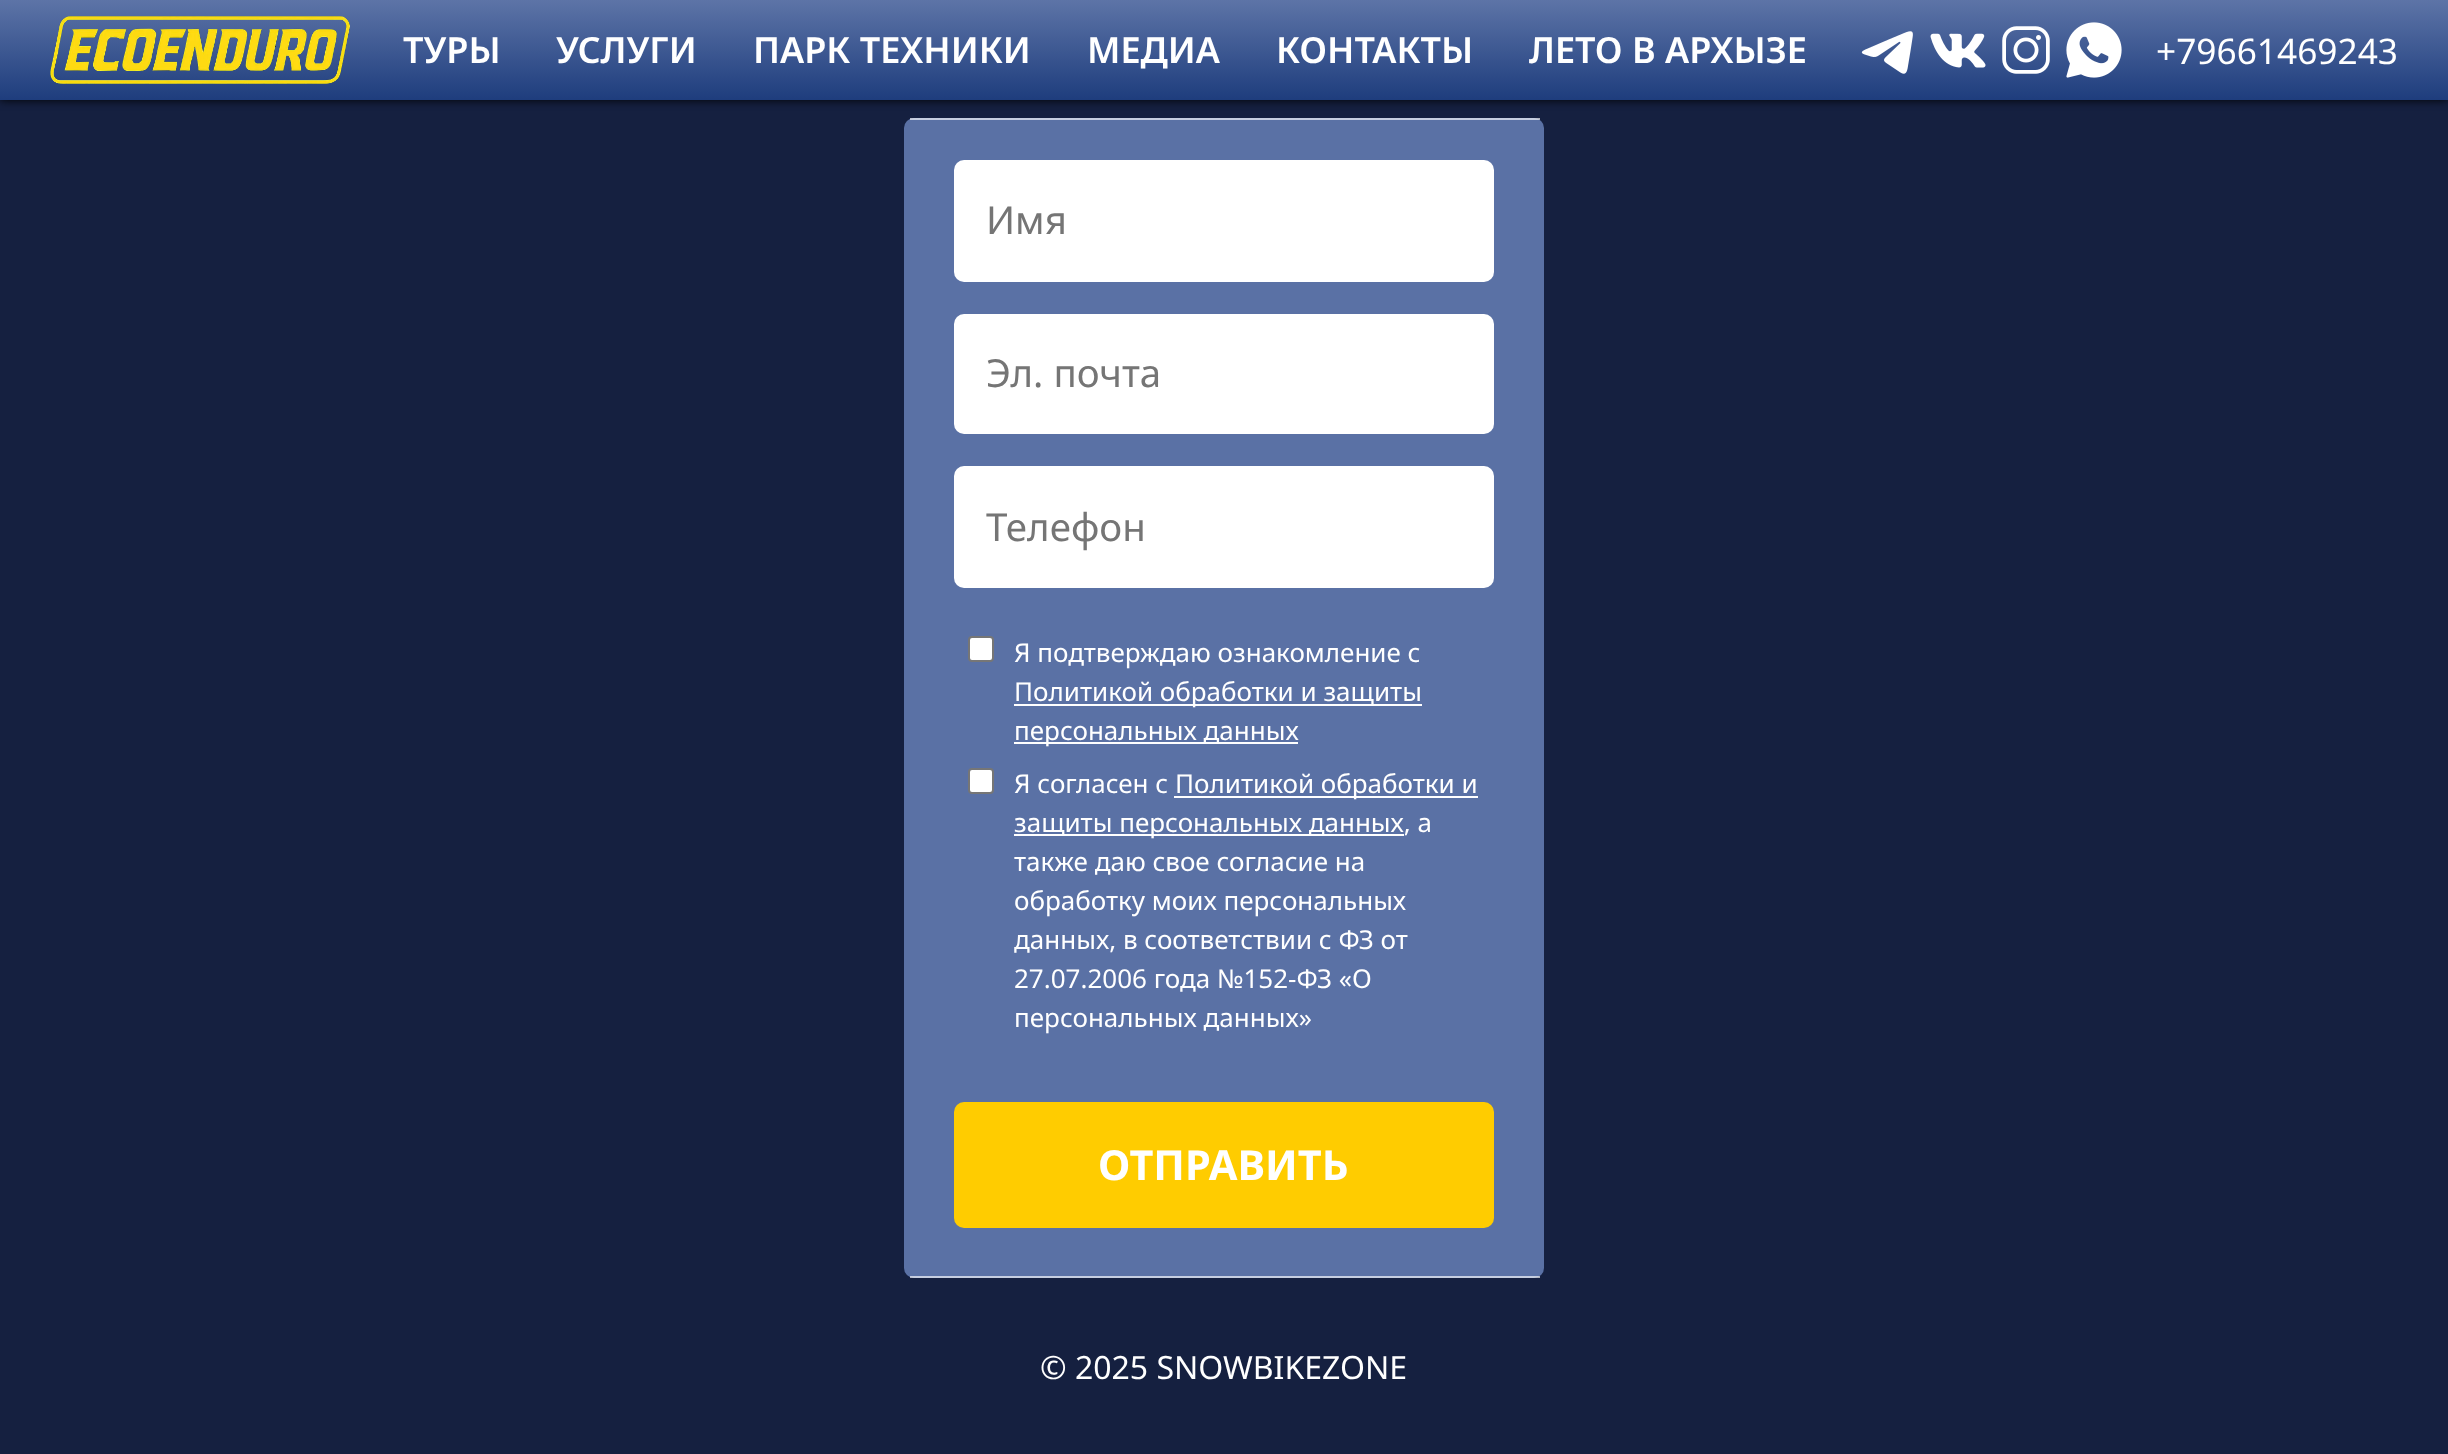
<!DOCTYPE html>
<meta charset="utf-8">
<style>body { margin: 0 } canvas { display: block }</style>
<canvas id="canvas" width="2448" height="1454"></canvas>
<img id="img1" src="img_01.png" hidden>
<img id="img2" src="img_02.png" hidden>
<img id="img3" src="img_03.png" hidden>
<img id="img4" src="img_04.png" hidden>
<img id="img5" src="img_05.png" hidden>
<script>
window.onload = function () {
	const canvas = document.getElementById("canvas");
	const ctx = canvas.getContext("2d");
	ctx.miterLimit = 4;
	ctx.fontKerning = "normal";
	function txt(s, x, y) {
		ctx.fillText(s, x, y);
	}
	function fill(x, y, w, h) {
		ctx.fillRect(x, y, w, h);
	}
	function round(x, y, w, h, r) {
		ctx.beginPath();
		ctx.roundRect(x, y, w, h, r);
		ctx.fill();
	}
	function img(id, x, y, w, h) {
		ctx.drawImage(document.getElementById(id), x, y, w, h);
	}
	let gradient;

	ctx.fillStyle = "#152040";
	fill(0, 0, 2448, 1454);
	ctx.fillStyle = "#000000";
	ctx.filter = "blur(5px)";
	ctx.beginPath();
	ctx.rect(0, 0, 2448, 100);
	ctx.fill();
	ctx.filter = "none";
	gradient = ctx.createLinearGradient(1224, 100, 1224, 0);
	gradient.addColorStop(0, "#1E3D7D");
	gradient.addColorStop(1, "#5D74A7");
	ctx.fillStyle = gradient;
	fill(0, 0, 2448, 100);
	img("img1", 50, 16, 300, 68);
	img("img2", 1861, 31, 52, 43);
	img("img3", 1930, 33, 56, 35);
	img("img4", 2002, 26, 48, 48);
	img("img5", 2066, 22, 56, 56);
	ctx.fillStyle = "#5A71A5";
	round(904, 118, 640, 1160, 10);
	ctx.fillStyle = "rgba(255, 255, 255, 0.66)";
	fill(910, 118, 630, 2);
	fill(910, 1276, 630, 2);
	ctx.fillStyle = "#FFFFFF";
	round(954, 160, 540, 122, 10);
	round(954, 314, 540, 120, 10);
	round(954, 466, 540, 122, 10);
	ctx.beginPath();
	ctx.roundRect(969, 637, 24, 24, 3);
	ctx.fill();
	ctx.strokeStyle = "#767676";
	ctx.lineWidth = 2;
	ctx.stroke();
	fill(1014, 704, 408, 2);
	fill(1014, 742, 284, 2);
	ctx.beginPath();
	ctx.roundRect(969, 769, 24, 24, 3);
	ctx.fill();
	ctx.stroke();
	fill(1174, 796, 304, 2);
	fill(1014, 834, 390, 2);
	ctx.fillStyle = "#FFCC00";
	round(954, 1102, 540, 126, 10);
	ctx.font = "600 36px Noto Sans";
	ctx.fillStyle = "#FFFFFF";
	txt("ТУРЫ", 403, 63);
	txt("УСЛУГИ", 556, 63);
	txt("ПАРК ТЕХНИКИ", 753, 63);
	txt("МЕДИА", 1087, 63);
	txt("КОНТАКТЫ", 1276, 63);
	txt("ЛЕТО В АРХЫЗЕ", 1529, 63);
	ctx.font = "35.25px Noto Sans";
	txt("+79661469243", 2156, 64);
	ctx.font = "38.5px Noto Sans";
	ctx.fillStyle = "#757575";
	txt("Имя", 986, 234);
	txt("Эл. почта", 986, 387);
	txt("Телефон", 986, 541);
	ctx.font = "26px Noto Sans";
	ctx.fillStyle = "#FFFFFF";
	txt("Я подтверждаю ознакомление с", 1014, 662);
	txt("Политикой обработки и защиты", 1014, 701);
	txt("персональных данных", 1014, 740);
	txt("Я согласен с", 1014, 793);
	txt("Политикой обработки и", 1175, 793);
	txt("защиты персональных данных, а", 1014, 832);
	txt("также даю свое согласие на", 1014, 871);
	txt("обработку моих персональных", 1014, 910);
	txt("данных, в соответствии с ФЗ от", 1014, 949);
	txt("27.07.2006 года №152-ФЗ «О", 1014, 988);
	txt("персональных данных»", 1014, 1027);
	ctx.font = "bold 41.5px Noto Sans";
	txt("ОТПРАВИТЬ", 1098, 1180);
	ctx.font = "32px Noto Sans";
	txt("© 2025 SNOWBIKEZONE", 1040, 1379);
};
</script>
